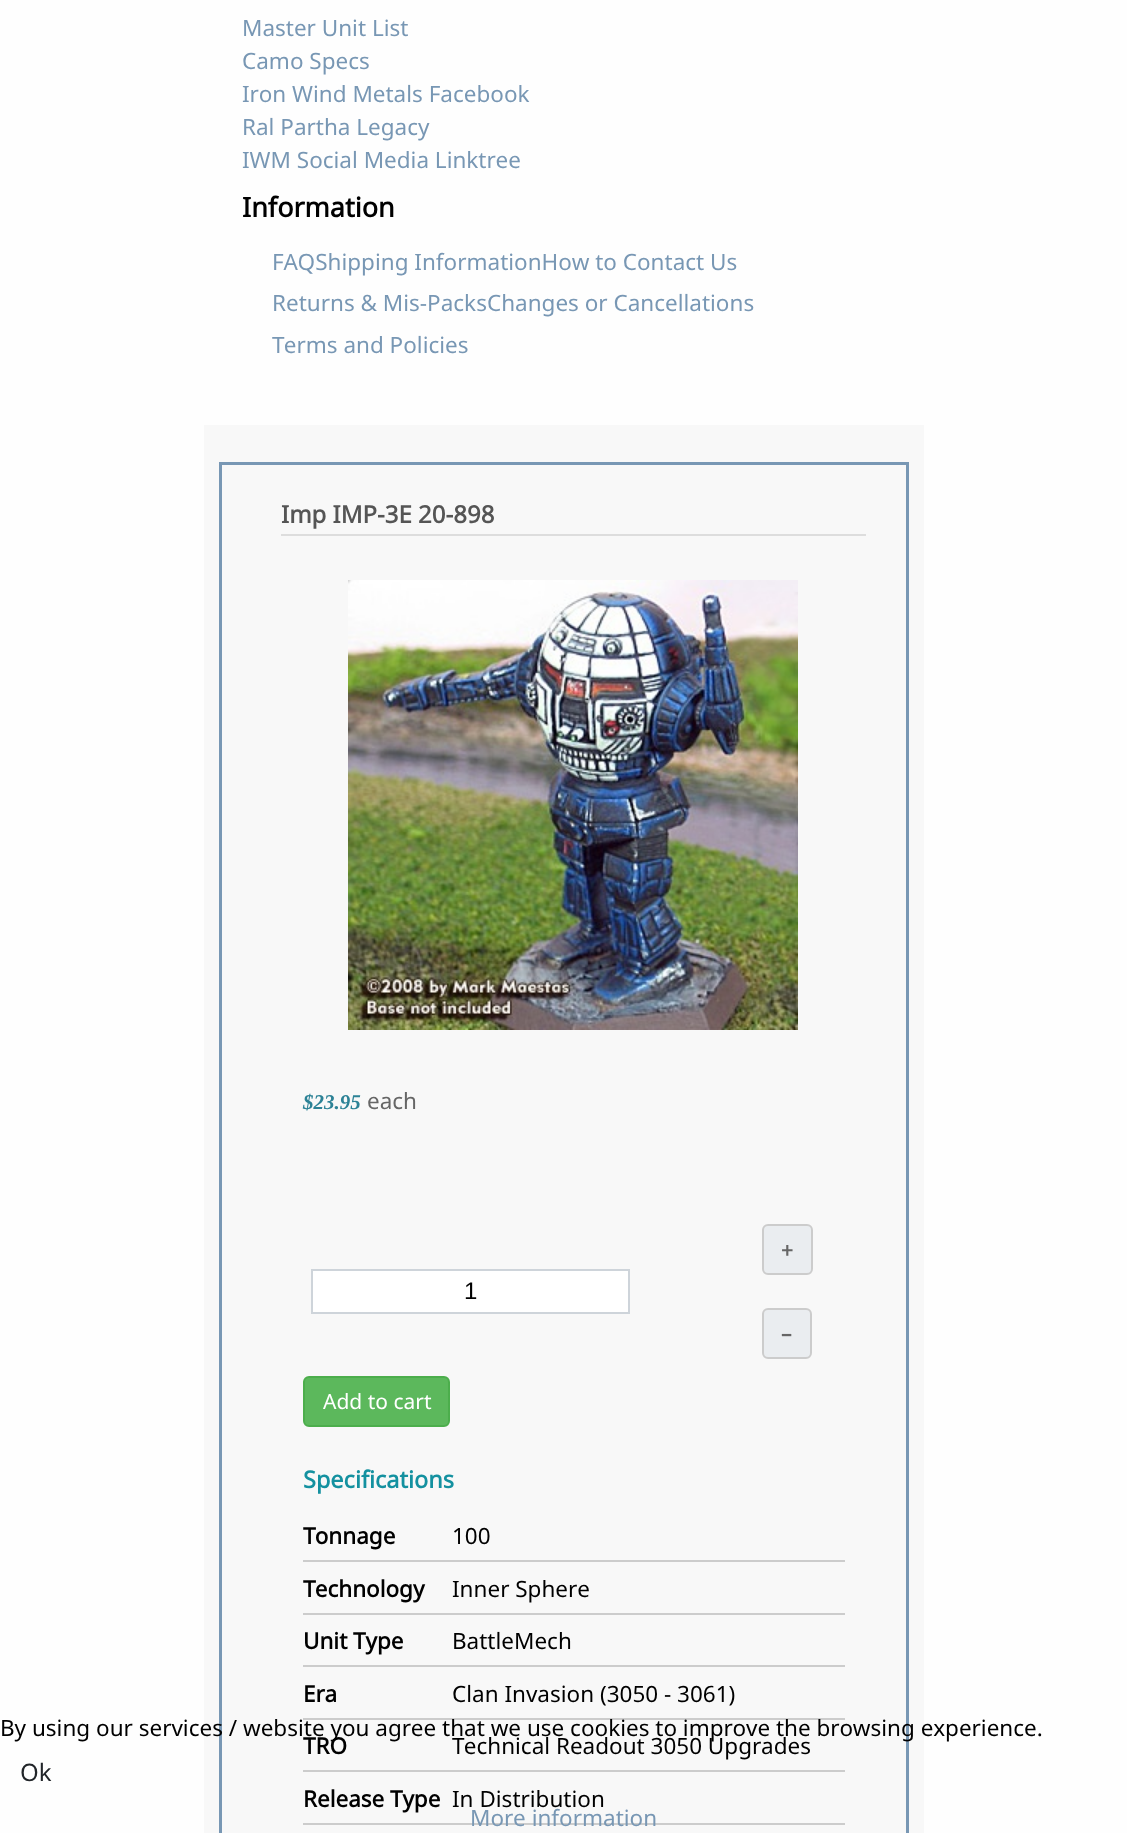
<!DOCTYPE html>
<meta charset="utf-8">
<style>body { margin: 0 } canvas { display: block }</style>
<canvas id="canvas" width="1127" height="1833"></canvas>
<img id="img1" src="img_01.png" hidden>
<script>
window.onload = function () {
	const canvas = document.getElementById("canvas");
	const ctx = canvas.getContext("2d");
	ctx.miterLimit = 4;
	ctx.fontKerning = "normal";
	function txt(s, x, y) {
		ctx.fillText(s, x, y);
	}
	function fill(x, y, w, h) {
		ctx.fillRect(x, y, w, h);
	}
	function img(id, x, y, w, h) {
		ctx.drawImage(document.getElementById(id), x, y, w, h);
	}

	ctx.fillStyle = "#FEFEFE";
	fill(0, 0, 1127, 1833);
	ctx.fillStyle = "#F8F8F8";
	fill(204, 425, 720, 1408);
	ctx.strokeStyle = "#7897B4";
	ctx.lineWidth = 3;
	ctx.strokeRect(220.5, 463.5, 687, 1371);
	ctx.fillStyle = "#DDDDDD";
	fill(281, 534, 585, 2);
	img("img1", 348, 580, 450, 450);
	ctx.fillStyle = "#EAEDF0";
	ctx.beginPath();
	ctx.roundRect(763, 1225, 49, 49, 5);
	ctx.fill();
	ctx.strokeStyle = "#CCCCCC";
	ctx.lineWidth = 2;
	ctx.stroke();
	ctx.fillStyle = "#FFFFFF";
	ctx.beginPath();
	ctx.rect(312, 1270, 317, 43);
	ctx.fill();
	ctx.strokeStyle = "#CED4DA";
	ctx.stroke();
	ctx.fillStyle = "#EAEDF0";
	ctx.beginPath();
	ctx.roundRect(763, 1309, 48, 49, 5);
	ctx.fill();
	ctx.strokeStyle = "#CCCCCC";
	ctx.stroke();
	ctx.fillStyle = "#5CB85C";
	ctx.beginPath();
	ctx.roundRect(304, 1377, 145, 49, 5);
	ctx.fill();
	ctx.strokeStyle = "#4CAE4C";
	ctx.stroke();
	ctx.fillStyle = "#CCCCCC";
	fill(303, 1560, 542, 2);
	fill(303, 1613, 542, 2);
	fill(303, 1665, 542, 2);
	fill(303, 1718, 542, 2);
	fill(303, 1770, 542, 2);
	fill(303, 1823, 542, 2);
	ctx.font = "22.5px Noto Sans";
	ctx.fillStyle = "#7897B4";
	txt("Master Unit List", 242, 36);
	txt("Camo Specs", 242, 69);
	txt("Iron Wind Metals Facebook", 242, 102);
	txt("Ral Partha Legacy", 242, 135);
	txt("IWM Social Media Linktree", 242, 168);
	ctx.font = "bold 27px Noto Sans";
	ctx.fillStyle = "#000000";
	txt("Information", 242, 217);
	ctx.font = "22.5px Noto Sans";
	ctx.fillStyle = "#7897B4";
	txt("FAQShipping InformationHow to Contact Us", 272, 270);
	txt("Returns & Mis-PacksChanges or Cancellations", 272, 311);
	txt("Terms and Policies", 272, 353);
	ctx.font = "bold 24px Noto Sans";
	ctx.fillStyle = "#555555";
	txt("Imp IMP-3E 20-898", 281, 523);
	ctx.font = "italic bold 21px Liberation Serif";
	ctx.fillStyle = "#2C8296";
	txt("$23.95", 303, 1109);
	ctx.font = "22.5px Noto Sans";
	ctx.fillStyle = "#666666";
	txt("each", 367, 1109);
	ctx.font = "bold 21px Noto Sans";
	txt("+", 781, 1258);
	ctx.font = "24px Liberation Sans";
	ctx.fillStyle = "#000000";
	txt("1", 464, 1299);
	ctx.font = "bold 21px Noto Sans";
	ctx.fillStyle = "#666666";
	txt("–", 781, 1341);
	ctx.font = "21px Noto Sans";
	ctx.fillStyle = "#FFFFFF";
	txt("Add to cart", 323, 1409);
	ctx.font = "bold 23.5px Noto Sans";
	ctx.fillStyle = "#1491A0";
	txt("Specifications", 303, 1488);
	ctx.font = "bold 22.5px Noto Sans";
	ctx.fillStyle = "#000000";
	txt("Tonnage", 303, 1544);
	ctx.font = "22.5px Noto Sans";
	txt("100", 452, 1544);
	ctx.font = "bold 22.5px Noto Sans";
	txt("Technology", 303, 1597);
	ctx.font = "22.5px Noto Sans";
	txt("Inner Sphere", 452, 1597);
	ctx.font = "bold 22.5px Noto Sans";
	txt("Unit Type", 303, 1649);
	ctx.font = "22.5px Noto Sans";
	txt("BattleMech", 452, 1649);
	ctx.font = "bold 22.5px Noto Sans";
	txt("Era", 303, 1702);
	ctx.font = "22.5px Noto Sans";
	txt("Clan Invasion (3050 - 3061)", 452, 1702);
	ctx.font = "bold 22.5px Noto Sans";
	txt("TRO", 303, 1754);
	ctx.font = "22.5px Noto Sans";
	txt("Technical Readout 3050 Upgrades", 452, 1754);
	ctx.font = "bold 22.5px Noto Sans";
	txt("Release Type", 303, 1807);
	ctx.font = "22.5px Noto Sans";
	txt("In Distribution", 452, 1807);
	txt("By using our services / website you agree that we use cookies to improve the browsing experience.", 0, 1736);
	ctx.font = "24px Noto Sans";
	ctx.fillStyle = "#212529";
	txt("Ok", 20, 1781);
	ctx.font = "22.5px Noto Sans";
	ctx.fillStyle = "#7897B4";
	txt("More information", 470, 1826);
};
</script>
